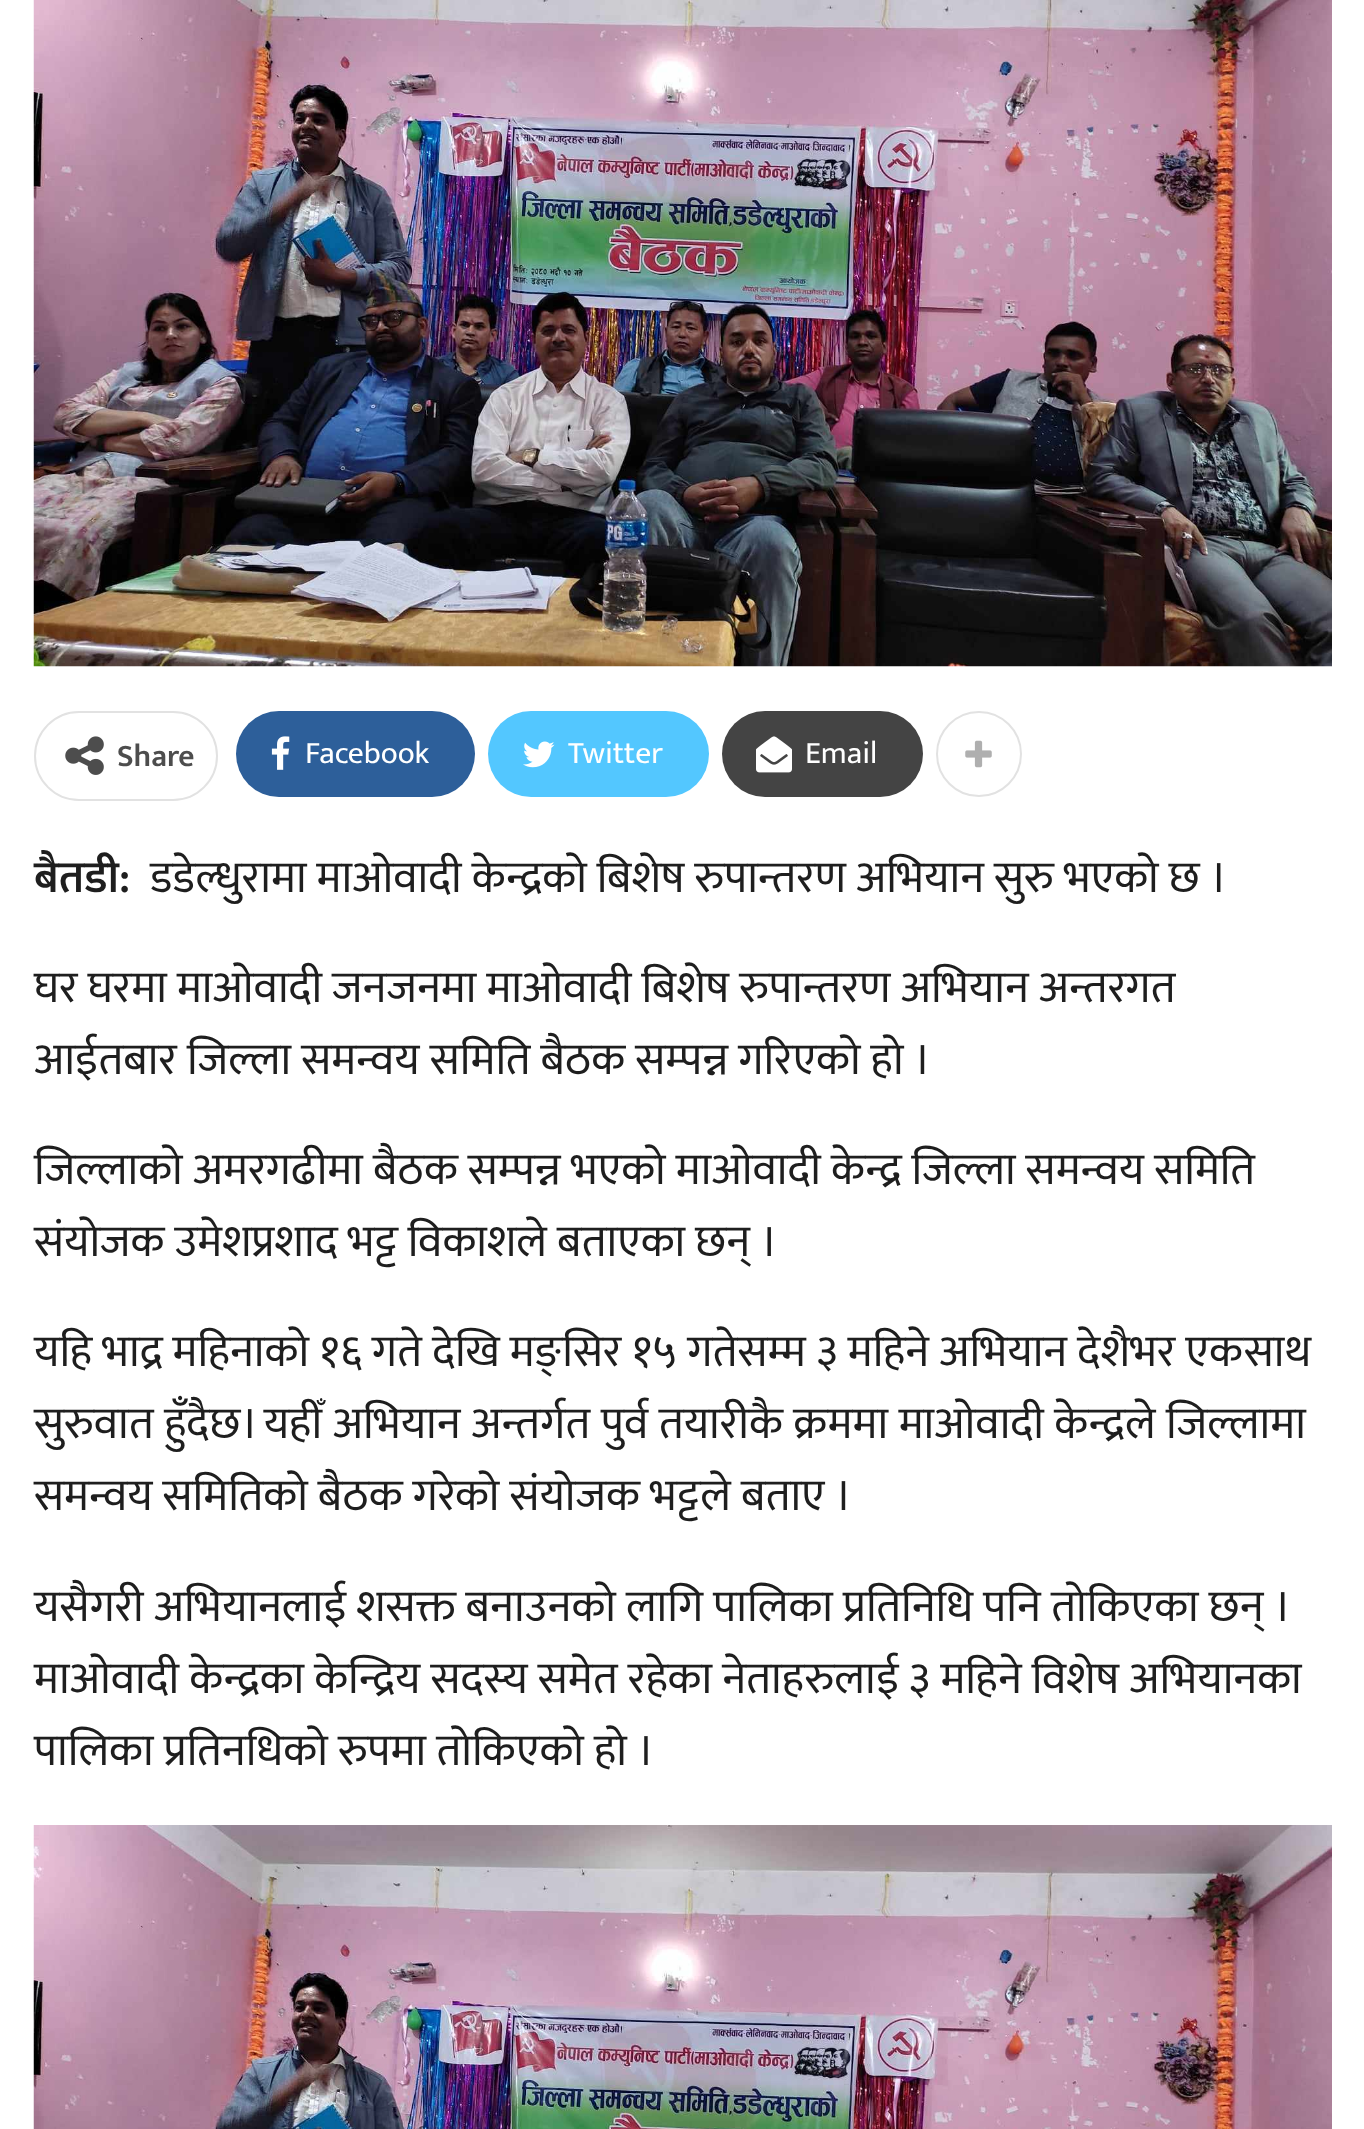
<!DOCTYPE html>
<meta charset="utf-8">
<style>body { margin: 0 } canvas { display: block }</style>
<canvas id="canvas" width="1364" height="2129"></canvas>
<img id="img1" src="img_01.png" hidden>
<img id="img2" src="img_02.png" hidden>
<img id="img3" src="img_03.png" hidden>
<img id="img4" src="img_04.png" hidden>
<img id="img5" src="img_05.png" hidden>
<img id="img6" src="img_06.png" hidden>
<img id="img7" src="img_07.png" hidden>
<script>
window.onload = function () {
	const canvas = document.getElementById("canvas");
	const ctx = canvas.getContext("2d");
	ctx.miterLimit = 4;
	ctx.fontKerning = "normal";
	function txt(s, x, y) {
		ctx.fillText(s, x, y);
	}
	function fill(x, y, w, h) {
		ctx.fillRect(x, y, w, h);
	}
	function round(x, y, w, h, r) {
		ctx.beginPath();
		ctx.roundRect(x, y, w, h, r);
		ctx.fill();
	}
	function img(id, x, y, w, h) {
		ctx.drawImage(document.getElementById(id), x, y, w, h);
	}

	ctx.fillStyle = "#FFFFFF";
	fill(0, 0, 1364, 2129);
	img("img1", 33, 0, 1299, 667);
	ctx.beginPath();
	ctx.roundRect(35, 712, 182, 88, 44);
	ctx.strokeStyle = "#E2E2E2";
	ctx.lineWidth = 2;
	ctx.stroke();
	img("img2", 65, 736, 39, 39);
	ctx.fillStyle = "#2D5F9A";
	round(236, 711, 239, 86, 43);
	img("img3", 271, 736, 19, 34);
	ctx.fillStyle = "#53C7FF";
	round(488, 711, 221, 86, 43);
	img("img4", 523, 741, 32, 27);
	ctx.fillStyle = "#444444";
	round(722, 711, 201, 86, 43);
	img("img5", 756, 736, 36, 37);
	ctx.beginPath();
	ctx.arc(979, 754, 42, 0, Math.PI * 2);
	ctx.stroke();
	img("img6", 965, 740, 27, 28);
	img("img7", 33, 1825, 1299, 304);
	ctx.font = "600 31.5px Mukta";
	ctx.fillStyle = "#4D4D4D";
	txt("Share", 117, 766);
	ctx.font = "31.5px Mukta";
	ctx.fillStyle = "#FFFFFF";
	txt("Facebook", 305, 763);
	txt("Twitter", 568, 763);
	txt("Email", 805, 763);
	ctx.font = "600 45px Mukta";
	ctx.fillStyle = "#1E1E1E";
	txt("बैतडी:", 34, 892);
	ctx.font = "45px Mukta";
	txt("डडेल्धुरामा माओवादी केन्द्रको बिशेष रुपान्तरण अभियान सुरु भएको छ ।", 150, 892);
	txt("घर घरमा माओवादी जनजनमा माओवादी बिशेष रुपान्तरण अभियान अन्तरगत", 34, 1002);
	txt("आईतबार जिल्ला समन्वय समिति बैठक सम्पन्न गरिएको हो ।", 34, 1074);
	txt("जिल्लाको अमरगढीमा बैठक सम्पन्न भएको माओवादी केन्द्र जिल्ला समन्वय समिति", 34, 1184);
	txt("संयोजक उमेशप्रशाद भट्ट विकाशले बताएका छन् ।", 34, 1256);
	txt("यहि भाद्र महिनाको १६ गते देखि मङ्सिर १५ गतेसम्म ३ महिने अभियान देशैभर एकसाथ", 34, 1366);
	ctx.wordSpacing = "0.5px";
	txt("सुरुवात हुँदैछ। यहीँ अभियान अन्तर्गत पुर्व तयारीकै क्रममा माओवादी केन्द्रले जिल्लामा", 34, 1438);
	ctx.wordSpacing = "0px";
	txt("समन्वय समितिको बैठक गरेको संयोजक भट्टले बताए ।", 34, 1510);
	txt("यसैगरी अभियानलाई शसक्त बनाउनको लागि पालिका प्रतिनिधि पनि तोकिएका छन् ।", 34, 1621);
	txt("माओवादी केन्द्रका केन्द्रिय सदस्य समेत रहेका नेताहरुलाई ३ महिने विशेष अभियानका", 34, 1693);
	txt("पालिका प्रतिनधिको रुपमा तोकिएको हो ।", 34, 1765);
};
</script>
